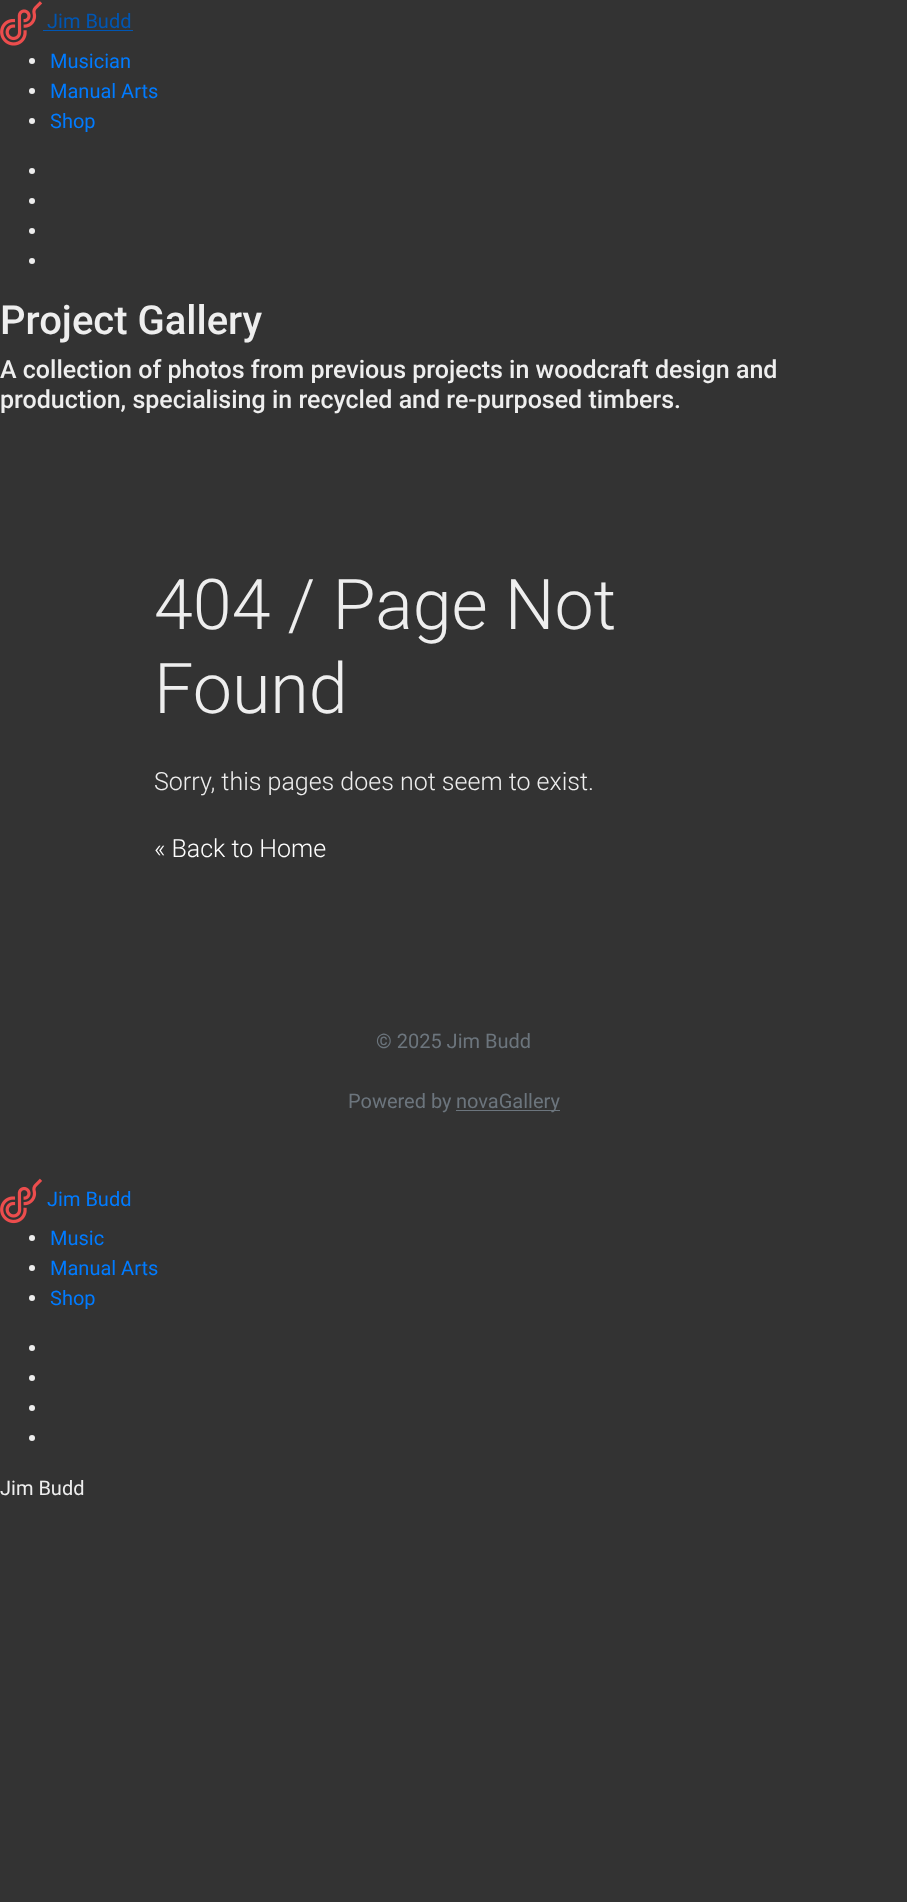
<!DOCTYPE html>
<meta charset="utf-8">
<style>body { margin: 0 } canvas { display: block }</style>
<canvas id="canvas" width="907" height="1902"></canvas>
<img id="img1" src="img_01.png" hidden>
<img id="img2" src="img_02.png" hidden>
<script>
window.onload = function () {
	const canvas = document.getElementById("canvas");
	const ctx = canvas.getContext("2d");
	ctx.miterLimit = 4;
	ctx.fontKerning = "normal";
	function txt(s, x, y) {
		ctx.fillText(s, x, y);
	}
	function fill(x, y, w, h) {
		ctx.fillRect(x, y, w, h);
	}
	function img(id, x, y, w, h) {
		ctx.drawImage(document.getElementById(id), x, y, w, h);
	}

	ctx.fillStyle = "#333333";
	fill(0, 0, 907, 1902);
	img("img1", 0, 1, 43, 45);
	ctx.fillStyle = "#0056B3";
	fill(43, 30, 90, 1);
	ctx.fillStyle = "#EEEEEE";
	ctx.beginPath();
	ctx.arc(32, 61, 3, 0, Math.PI * 2);
	ctx.fill();
	ctx.beginPath();
	ctx.arc(32, 91, 3, 0, Math.PI * 2);
	ctx.fill();
	ctx.beginPath();
	ctx.arc(32, 121, 3, 0, Math.PI * 2);
	ctx.fill();
	ctx.beginPath();
	ctx.arc(32, 171, 3, 0, Math.PI * 2);
	ctx.fill();
	ctx.beginPath();
	ctx.arc(32, 201, 3, 0, Math.PI * 2);
	ctx.fill();
	ctx.beginPath();
	ctx.arc(32, 231, 3, 0, Math.PI * 2);
	ctx.fill();
	ctx.beginPath();
	ctx.arc(32, 261, 3, 0, Math.PI * 2);
	ctx.fill();
	ctx.fillStyle = "#6C757D";
	fill(456, 1110, 104, 1);
	img("img2", 0, 1178, 43, 46);
	ctx.fillStyle = "#EEEEEE";
	ctx.beginPath();
	ctx.arc(32, 1238, 3, 0, Math.PI * 2);
	ctx.fill();
	ctx.beginPath();
	ctx.arc(32, 1268, 3, 0, Math.PI * 2);
	ctx.fill();
	ctx.beginPath();
	ctx.arc(32, 1298, 3, 0, Math.PI * 2);
	ctx.fill();
	ctx.beginPath();
	ctx.arc(32, 1348, 3, 0, Math.PI * 2);
	ctx.fill();
	ctx.beginPath();
	ctx.arc(32, 1378, 3, 0, Math.PI * 2);
	ctx.fill();
	ctx.beginPath();
	ctx.arc(32, 1408, 3, 0, Math.PI * 2);
	ctx.fill();
	ctx.beginPath();
	ctx.arc(32, 1438, 3, 0, Math.PI * 2);
	ctx.fill();
	ctx.font = "20px Roboto";
	ctx.fillStyle = "#0056B3";
	txt("Jim Budd", 47, 28);
	ctx.fillStyle = "#007BFF";
	txt("Musician", 50, 68);
	txt("Manual Arts", 50, 98);
	txt("Shop", 50, 128);
	ctx.font = "500 40px Roboto";
	ctx.fillStyle = "#EEEEEE";
	txt("Project Gallery", 0, 334);
	ctx.font = "500 25px Roboto";
	txt("A collection of photos from previous projects in woodcraft design and", 0, 378);
	txt("production, specialising in recycled and re-purposed timbers.", 0, 408);
	ctx.font = "300 70px Roboto";
	txt("404 / Page Not", 154, 629);
	txt("Found", 154, 713);
	ctx.font = "300 25px Roboto";
	txt("Sorry, this pages does not seem to exist.", 154, 790);
	ctx.fillStyle = "#FFFFFF";
	txt("« Back to Home", 154, 857);
	ctx.font = "20px Roboto";
	ctx.fillStyle = "#6C757D";
	txt("© 2025 Jim Budd", 376, 1048);
	txt("Powered by", 348, 1108);
	txt("novaGallery", 456, 1108);
	ctx.fillStyle = "#007BFF";
	txt("Jim Budd", 47, 1206);
	txt("Music", 50, 1245);
	txt("Manual Arts", 50, 1275);
	txt("Shop", 50, 1305);
	ctx.fillStyle = "#EEEEEE";
	txt("Jim Budd", 0, 1495);
};
</script>
